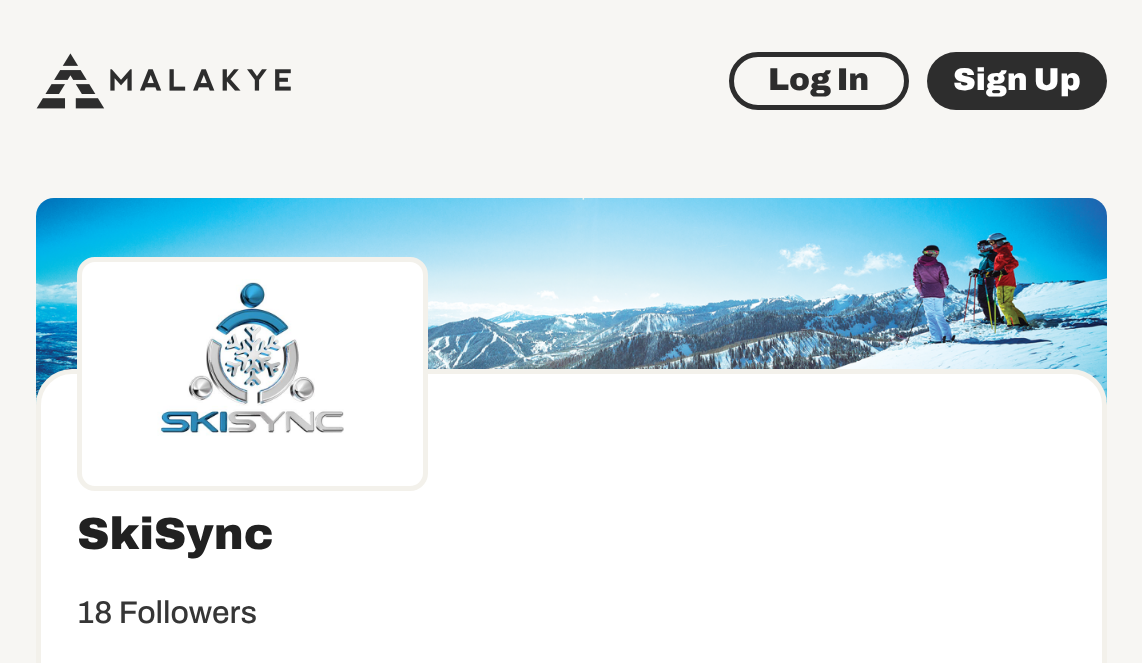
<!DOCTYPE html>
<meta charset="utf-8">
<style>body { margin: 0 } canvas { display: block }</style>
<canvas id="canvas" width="1142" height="663"></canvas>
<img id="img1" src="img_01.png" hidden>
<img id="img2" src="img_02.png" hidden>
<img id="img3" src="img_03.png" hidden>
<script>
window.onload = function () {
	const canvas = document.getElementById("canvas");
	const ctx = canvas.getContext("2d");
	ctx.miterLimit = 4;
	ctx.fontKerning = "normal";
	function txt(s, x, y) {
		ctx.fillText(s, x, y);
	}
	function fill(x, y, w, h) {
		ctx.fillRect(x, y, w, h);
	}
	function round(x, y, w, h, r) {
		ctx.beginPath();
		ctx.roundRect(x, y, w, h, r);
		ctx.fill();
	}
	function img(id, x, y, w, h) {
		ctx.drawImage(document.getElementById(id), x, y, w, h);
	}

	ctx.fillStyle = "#F7F6F3";
	fill(0, 0, 1142, 663);
	img("img1", 36, 53, 255, 56);
	ctx.beginPath();
	ctx.roundRect(731.5, 54.5, 175, 53, 26.5);
	ctx.strokeStyle = "#2D2D2D";
	ctx.lineWidth = 5;
	ctx.stroke();
	ctx.fillStyle = "#2D2D2D";
	round(927, 52, 180, 58, 29);
	img("img2", 36, 198, 1071, 207);
	ctx.fillStyle = "#FFFFFF";
	ctx.beginPath();
	ctx.roundRect(38.5, 371.5, 1066, 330, 33.5);
	ctx.fill();
	ctx.strokeStyle = "#F3F1EB";
	ctx.stroke();
	ctx.beginPath();
	ctx.roundRect(79.5, 259.5, 346, 229, 15.5);
	ctx.fill();
	ctx.stroke();
	img("img3", 157, 279, 187, 157);
	ctx.font = "600 31.5px Archivo";
	ctx.fillStyle = "#2D2D2D";
	txt("Log In", 768, 90);
	ctx.fillStyle = "#FFFFFF";
	txt("Sign Up", 953, 90);
	ctx.font = "600 45px Archivo";
	ctx.fillStyle = "#212121";
	txt("SkiSync", 77, 549);
	ctx.font = "600 31.5px 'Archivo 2'";
	ctx.fillStyle = "#363636";
	txt("18 Followers", 77, 623);
};
</script>
